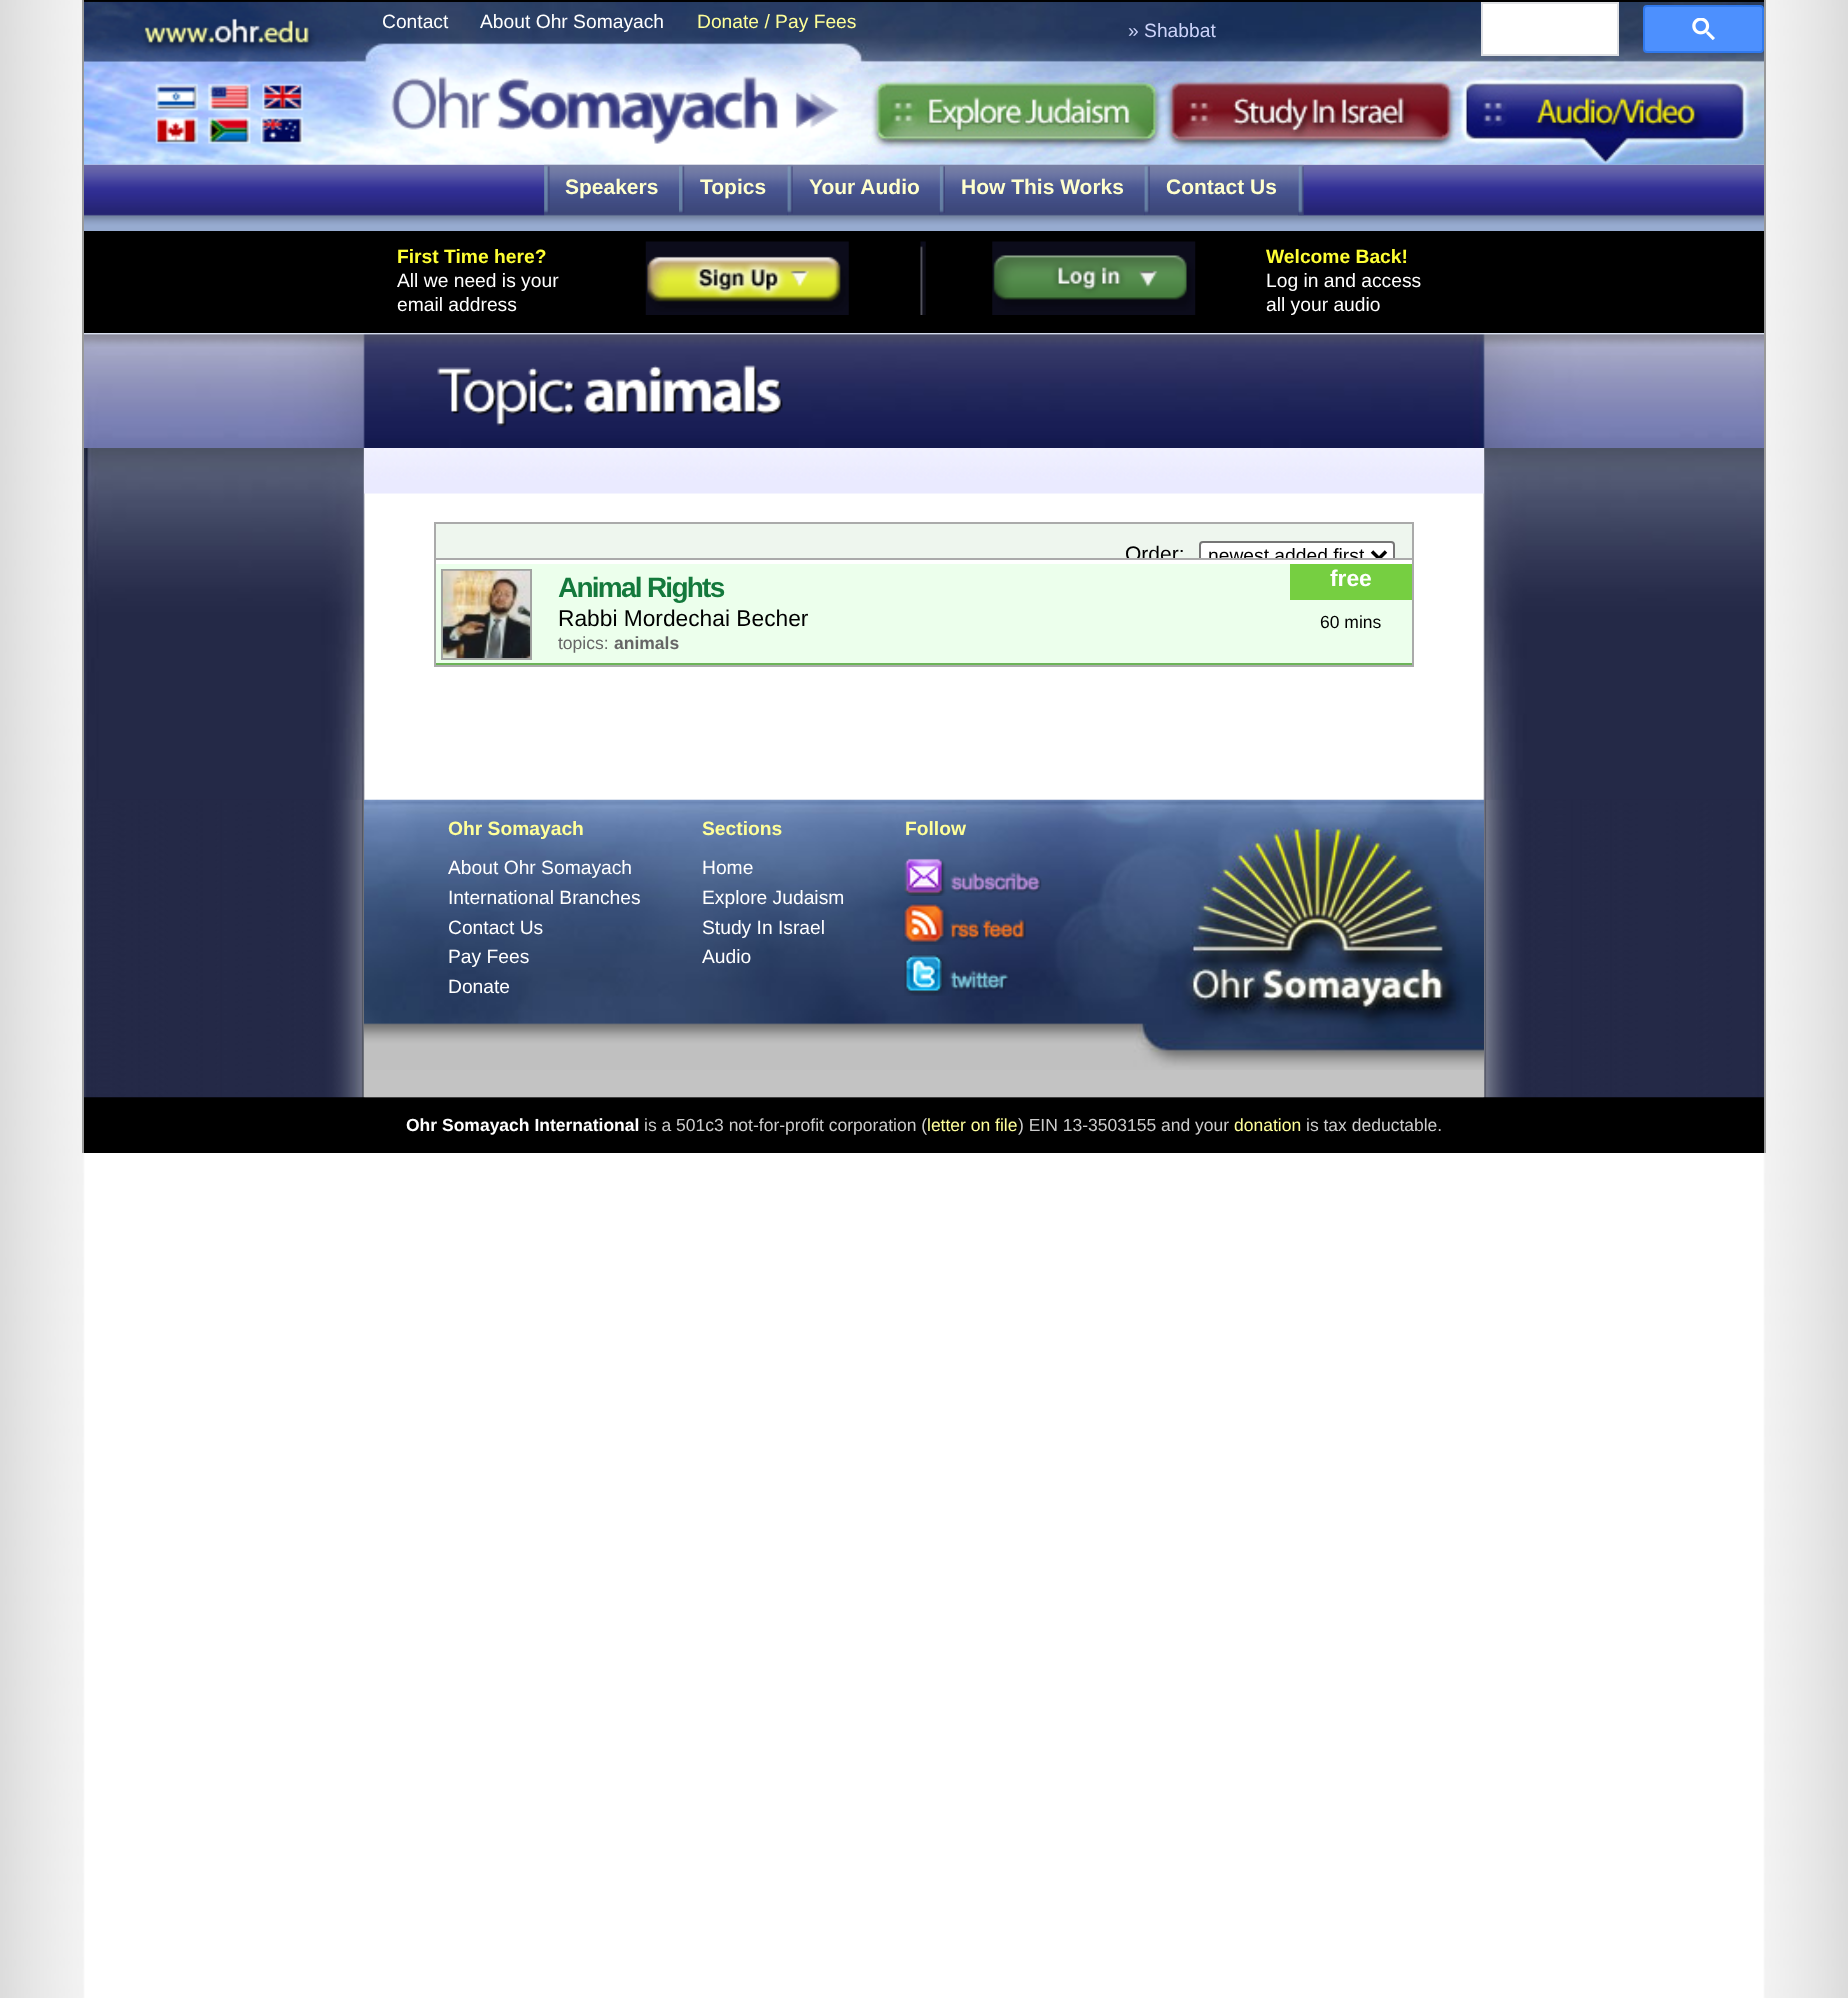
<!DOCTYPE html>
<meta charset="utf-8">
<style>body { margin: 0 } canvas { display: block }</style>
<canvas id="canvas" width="1848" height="1998"></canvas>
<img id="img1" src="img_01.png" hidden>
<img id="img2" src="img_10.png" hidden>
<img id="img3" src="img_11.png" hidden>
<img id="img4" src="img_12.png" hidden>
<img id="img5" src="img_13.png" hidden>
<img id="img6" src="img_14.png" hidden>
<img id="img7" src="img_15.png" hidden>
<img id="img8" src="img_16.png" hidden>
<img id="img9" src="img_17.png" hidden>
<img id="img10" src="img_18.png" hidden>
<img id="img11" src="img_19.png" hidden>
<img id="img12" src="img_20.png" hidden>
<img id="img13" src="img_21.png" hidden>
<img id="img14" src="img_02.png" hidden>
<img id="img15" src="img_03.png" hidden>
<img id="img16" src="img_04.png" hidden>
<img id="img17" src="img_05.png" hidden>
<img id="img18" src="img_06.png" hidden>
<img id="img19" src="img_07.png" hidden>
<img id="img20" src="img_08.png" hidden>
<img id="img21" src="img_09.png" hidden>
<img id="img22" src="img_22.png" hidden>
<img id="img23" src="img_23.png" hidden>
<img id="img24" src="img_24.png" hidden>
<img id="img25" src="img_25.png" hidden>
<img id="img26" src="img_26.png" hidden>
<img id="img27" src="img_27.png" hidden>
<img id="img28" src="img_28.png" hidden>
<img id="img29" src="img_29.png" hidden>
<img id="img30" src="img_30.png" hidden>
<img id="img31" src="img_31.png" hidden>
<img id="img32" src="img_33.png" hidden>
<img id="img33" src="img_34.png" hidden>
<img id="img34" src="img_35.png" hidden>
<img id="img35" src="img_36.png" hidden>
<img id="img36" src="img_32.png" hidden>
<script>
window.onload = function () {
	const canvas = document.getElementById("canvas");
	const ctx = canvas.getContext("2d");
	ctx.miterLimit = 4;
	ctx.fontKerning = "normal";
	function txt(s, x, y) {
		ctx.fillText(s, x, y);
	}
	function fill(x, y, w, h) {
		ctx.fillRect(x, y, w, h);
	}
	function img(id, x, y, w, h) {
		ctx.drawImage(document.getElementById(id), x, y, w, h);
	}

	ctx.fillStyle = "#FFFFFF";
	fill(0, 0, 1848, 1998);
	img("img1", 0, 0, 1848, 1998);
	ctx.fillStyle = "#999999";
	fill(1764, 0, 2, 1153);
	fill(82, 0, 2, 1153);
	img("img2", 84, 164, 1680, 67);
	img("img3", 544, 164, 135, 52);
	img("img4", 544, 164, 6, 51);
	img("img5", 679, 164, 109, 52);
	img("img6", 679, 164, 6, 49);
	img("img7", 787, 164, 153, 52);
	img("img8", 787, 164, 6, 50);
	img("img9", 939, 164, 206, 52);
	img("img10", 939, 164, 6, 49);
	img("img11", 1144, 164, 155, 52);
	img("img12", 1144, 164, 6, 50);
	img("img13", 1298, 164, 6, 52);
	img("img14", 84, 2, 1680, 163);
	ctx.fillStyle = "#000000";
	fill(84, 0, 1680, 2);
	img("img15", 84, 1, 263, 61);
	ctx.fillStyle = "#FFFFFF";
	ctx.beginPath();
	ctx.rect(1482, 3, 136, 52);
	ctx.fill();
	ctx.strokeStyle = "#DFE1E5";
	ctx.lineWidth = 2;
	ctx.stroke();
	ctx.fillStyle = "#4D90FE";
	ctx.beginPath();
	ctx.roundRect(1644, 6, 119, 46, 3);
	ctx.fill();
	ctx.strokeStyle = "#3079ED";
	ctx.stroke();
	img("img16", 1692, 18, 23, 22);
	img("img17", 154, 82, 150, 62);
	img("img18", 376, 65, 485, 100);
	img("img19", 868, 77, 296, 88);
	img("img20", 1164, 77, 294, 88);
	img("img21", 1458, 77, 296, 88);
	ctx.fillStyle = "#000000";
	fill(84, 1097, 1680, 56);
	img("img22", 84, 799, 1680, 299);
	img("img23", 84, 333, 1680, 115);
	fill(84, 231, 1680, 102);
	img("img24", 645, 241, 204, 74);
	img("img25", 920, 241, 6, 74);
	img("img26", 992, 241, 204, 74);
	img("img27", 84, 333, 1680, 14);
	img("img28", 437, 367, 138, 61);
	img("img29", 584, 365, 199, 51);
	img("img30", 84, 448, 1680, 352);
	img("img31", 364, 448, 1120, 46);
	ctx.fillStyle = "#EEF6EE";
	fill(436, 524, 976, 34);
	ctx.fillStyle = "#AAAAAA";
	fill(434, 522, 980, 2);
	fill(1412, 522, 2, 36);
	fill(434, 522, 2, 36);
	ctx.fillStyle = "#FFFFFF";
	ctx.beginPath();
	ctx.roundRect(1200, 542, 194, 26, 3);
	ctx.fill();
	ctx.strokeStyle = "#767676";
	ctx.stroke();
	ctx.beginPath();
	ctx.moveTo(1372, 551.5);
	ctx.lineTo(1379, 558.5);
	ctx.lineTo(1386, 551.5);
	ctx.strokeStyle = "#000000";
	ctx.lineWidth = 3.5;
	ctx.stroke();
	ctx.fillStyle = "#C3C3C3";
	fill(364, 1070, 1120, 27);
	img("img32", 364, 799, 1120, 271);
	img("img33", 904, 858, 138, 38);
	img("img34", 903, 903, 123, 42);
	img("img35", 904, 954, 106, 42);
	ctx.font = "19.25px Liberation Sans";
	ctx.fillStyle = "#FFFFFF";
	txt("Contact", 382, 28);
	txt("About Ohr Somayach", 480, 28);
	ctx.fillStyle = "#FFFF99";
	txt("Donate / Pay Fees", 697, 28);
	ctx.fillStyle = "#CCD3F9";
	txt("» Shabbat", 1128, 37);
	ctx.font = "bold 21px Liberation Sans";
	ctx.fillStyle = "#FFFFCC";
	txt("Speakers", 565, 194);
	txt("Topics", 700, 194);
	txt("Your Audio", 809, 194);
	txt("How This Works", 961, 194);
	txt("Contact Us", 1166, 194);
	ctx.font = "bold 19.25px Liberation Sans";
	ctx.fillStyle = "#FFFF33";
	txt("First Time here?", 397, 263);
	ctx.font = "19.25px Liberation Sans";
	ctx.fillStyle = "#FFFFFF";
	txt("All we need is your", 397, 287);
	txt("email address", 397, 311);
	ctx.font = "bold 19.25px Liberation Sans";
	ctx.fillStyle = "#FFFF33";
	txt("Welcome Back!", 1266, 263);
	ctx.font = "19.25px Liberation Sans";
	ctx.fillStyle = "#FFFFFF";
	txt("Log in and access", 1266, 287);
	txt("all your audio", 1266, 311);
	ctx.font = "21px Liberation Sans";
	ctx.fillStyle = "#000000";
	txt("Order:", 1125, 561);
	ctx.font = "19.25px Liberation Sans";
	txt("newest added first", 1208, 562);
	ctx.strokeStyle = "#AAAAAA";
	ctx.lineWidth = 2;
	ctx.strokeRect(435, 559, 978, 107);
	ctx.fillStyle = "#ECFFEC";
	fill(436, 564, 976, 99);
	ctx.fillStyle = "#FFFFFF";
	fill(1128, 560, 267, 4);
	ctx.fillStyle = "#6CB458";
	fill(436, 663, 976, 2);
	ctx.strokeStyle = "#A1A3A1";
	ctx.strokeRect(442, 570, 89, 89);
	img("img36", 442, 570, 89, 88);
	ctx.letterSpacing = "-1.75px";
	ctx.font = "bold 28px Liberation Sans";
	ctx.fillStyle = "#14793C";
	txt("Animal Rights", 558, 597);
	ctx.fillStyle = "#76CF41";
	fill(1290, 564, 122, 36);
	ctx.letterSpacing = "0px";
	ctx.font = "bold 22.75px Liberation Sans";
	ctx.fillStyle = "#FFFFFF";
	txt("free", 1330, 586);
	ctx.font = "17.5px Liberation Sans";
	ctx.fillStyle = "#000000";
	txt("60 mins", 1320, 628);
	ctx.font = "22.75px Liberation Sans";
	txt("Rabbi Mordechai Becher", 558, 626);
	ctx.font = "17.5px Liberation Sans";
	ctx.fillStyle = "#666666";
	txt("topics:", 558, 649);
	ctx.font = "bold 17.5px Liberation Sans";
	txt("animals", 614, 649);
	ctx.font = "bold 19.25px Liberation Sans";
	ctx.fillStyle = "#FFFF99";
	txt("Ohr Somayach", 448, 835);
	txt("Sections", 702, 835);
	txt("Follow", 905, 835);
	ctx.font = "19.25px Liberation Sans";
	ctx.fillStyle = "#FFFFFF";
	txt("About Ohr Somayach", 448, 874);
	txt("International Branches", 448, 904);
	txt("Contact Us", 448, 934);
	txt("Pay Fees", 448, 963);
	txt("Donate", 448, 993);
	txt("Home", 702, 874);
	txt("Explore Judaism", 702, 904);
	txt("Study In Israel", 702, 934);
	txt("Audio", 702, 963);
	ctx.font = "bold 17.5px Liberation Sans";
	txt("Ohr Somayach International", 406, 1131);
	ctx.font = "17.5px Liberation Sans";
	ctx.fillStyle = "#CCCCCC";
	txt("is a 501c3 not-for-profit corporation (", 644, 1131);
	ctx.fillStyle = "#FFFF99";
	txt("letter on file", 927, 1131);
	ctx.fillStyle = "#CCCCCC";
	txt(") EIN 13-3503155 and your", 1018, 1131);
	ctx.fillStyle = "#FFFF99";
	txt("donation", 1234, 1131);
	ctx.fillStyle = "#CCCCCC";
	txt("is tax deductable.", 1306, 1131);
};
</script>
